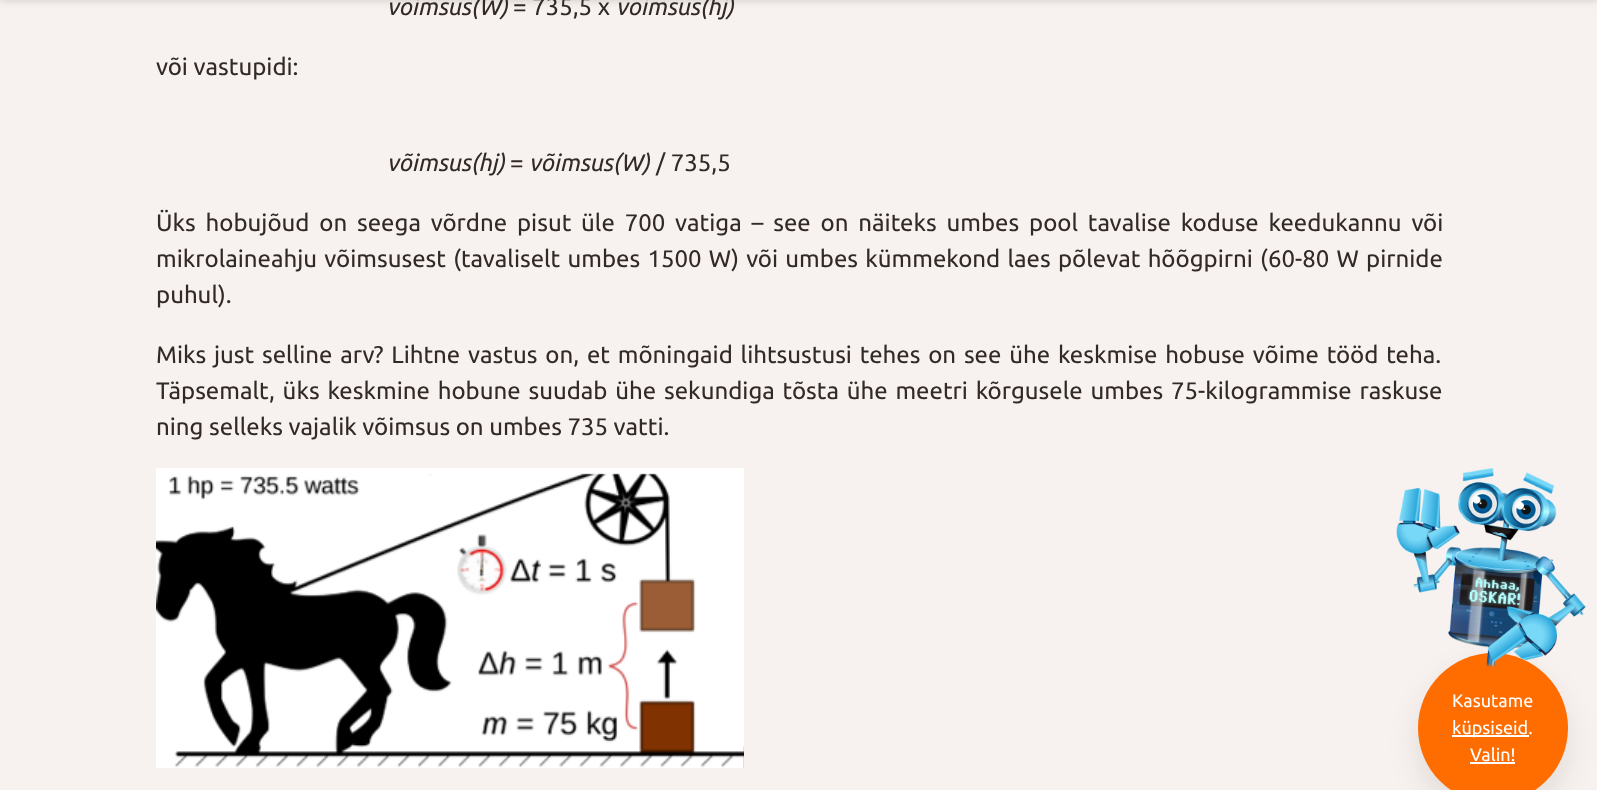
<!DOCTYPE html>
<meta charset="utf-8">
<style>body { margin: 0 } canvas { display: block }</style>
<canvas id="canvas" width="1597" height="790"></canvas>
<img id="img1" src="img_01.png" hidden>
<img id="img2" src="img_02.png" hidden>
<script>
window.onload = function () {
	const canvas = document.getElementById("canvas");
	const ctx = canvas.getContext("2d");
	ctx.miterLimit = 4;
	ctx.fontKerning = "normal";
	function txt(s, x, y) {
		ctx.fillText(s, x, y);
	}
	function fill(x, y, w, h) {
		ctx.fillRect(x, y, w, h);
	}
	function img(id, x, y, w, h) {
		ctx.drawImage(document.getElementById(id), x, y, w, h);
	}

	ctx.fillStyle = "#F7F2EF";
	fill(0, 0, 1597, 790);
	ctx.fillStyle = "rgba(36, 30, 27, 0.2)";
	ctx.filter = "blur(4.5px)";
	ctx.beginPath();
	ctx.rect(0, -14, 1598, 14);
	ctx.fill();
	ctx.filter = "none";
	img("img1", 156, 468, 588, 300);
	ctx.fillStyle = "rgba(36, 30, 27, 0.1)";
	ctx.filter = "blur(15px)";
	ctx.beginPath();
	ctx.roundRect(1418, 668, 150, 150, 75);
	ctx.fill();
	ctx.filter = "none";
	ctx.fillStyle = "#FF6C00";
	ctx.beginPath();
	ctx.arc(1493, 728, 75, 0, Math.PI * 2);
	ctx.fill();
	img("img2", 1396, 468, 190, 200);
	ctx.fillStyle = "#FFFFFF";
	fill(1452, 735, 77, 2);
	fill(1470, 762, 45, 2);
	ctx.font = "italic 24px Ubuntu";
	ctx.fillStyle = "#332A26";
	txt("võimsus(W)", 387, 15);
	ctx.font = "24px Ubuntu";
	txt("= 735,5 x", 513, 15);
	ctx.font = "italic 24px Ubuntu";
	txt("võimsus(hj)", 616, 15);
	ctx.font = "24px Ubuntu";
	txt("või vastupidi:", 156, 75);
	ctx.font = "italic 24px Ubuntu";
	txt("võimsus(hj)", 387, 171);
	ctx.font = "24px Ubuntu";
	txt("=", 510, 171);
	ctx.font = "italic 24px Ubuntu";
	txt("võimsus(W)", 529, 171);
	ctx.font = "24px Ubuntu";
	txt("/ 735,5", 656, 171);
	ctx.wordSpacing = "4.25px";
	txt("Üks hobujõud on seega võrdne pisut üle 700 vatiga – see on näiteks umbes pool tavalise koduse keedukannu või", 156, 231);
	ctx.wordSpacing = "1.7px";
	txt("mikrolaineahju võimsusest (tavaliselt umbes 1500 W) või umbes kümmekond laes põlevat hõõgpirni (60-80 W pirnide", 156, 267);
	ctx.wordSpacing = "0px";
	txt("puhul).", 156, 303);
	ctx.wordSpacing = "2.25px";
	txt("Miks just selline arv? Lihtne vastus on, et mõningaid lihtsustusi tehes on see ühe keskmise hobuse võime tööd teha.", 156, 363);
	txt("Täpsemalt, üks keskmine hobune suudab ühe sekundiga tõsta ühe meetri kõrgusele umbes 75-kilogrammise raskuse", 156, 399);
	ctx.wordSpacing = "0px";
	txt("ning selleks vajalik võimsus on umbes 735 vatti.", 156, 435);
	ctx.font = "18px Ubuntu";
	ctx.fillStyle = "#FFFFFF";
	txt("Kasutame", 1452, 707);
	txt("küpsiseid.", 1452, 734);
	txt("Valin!", 1470, 761);
};
</script>
